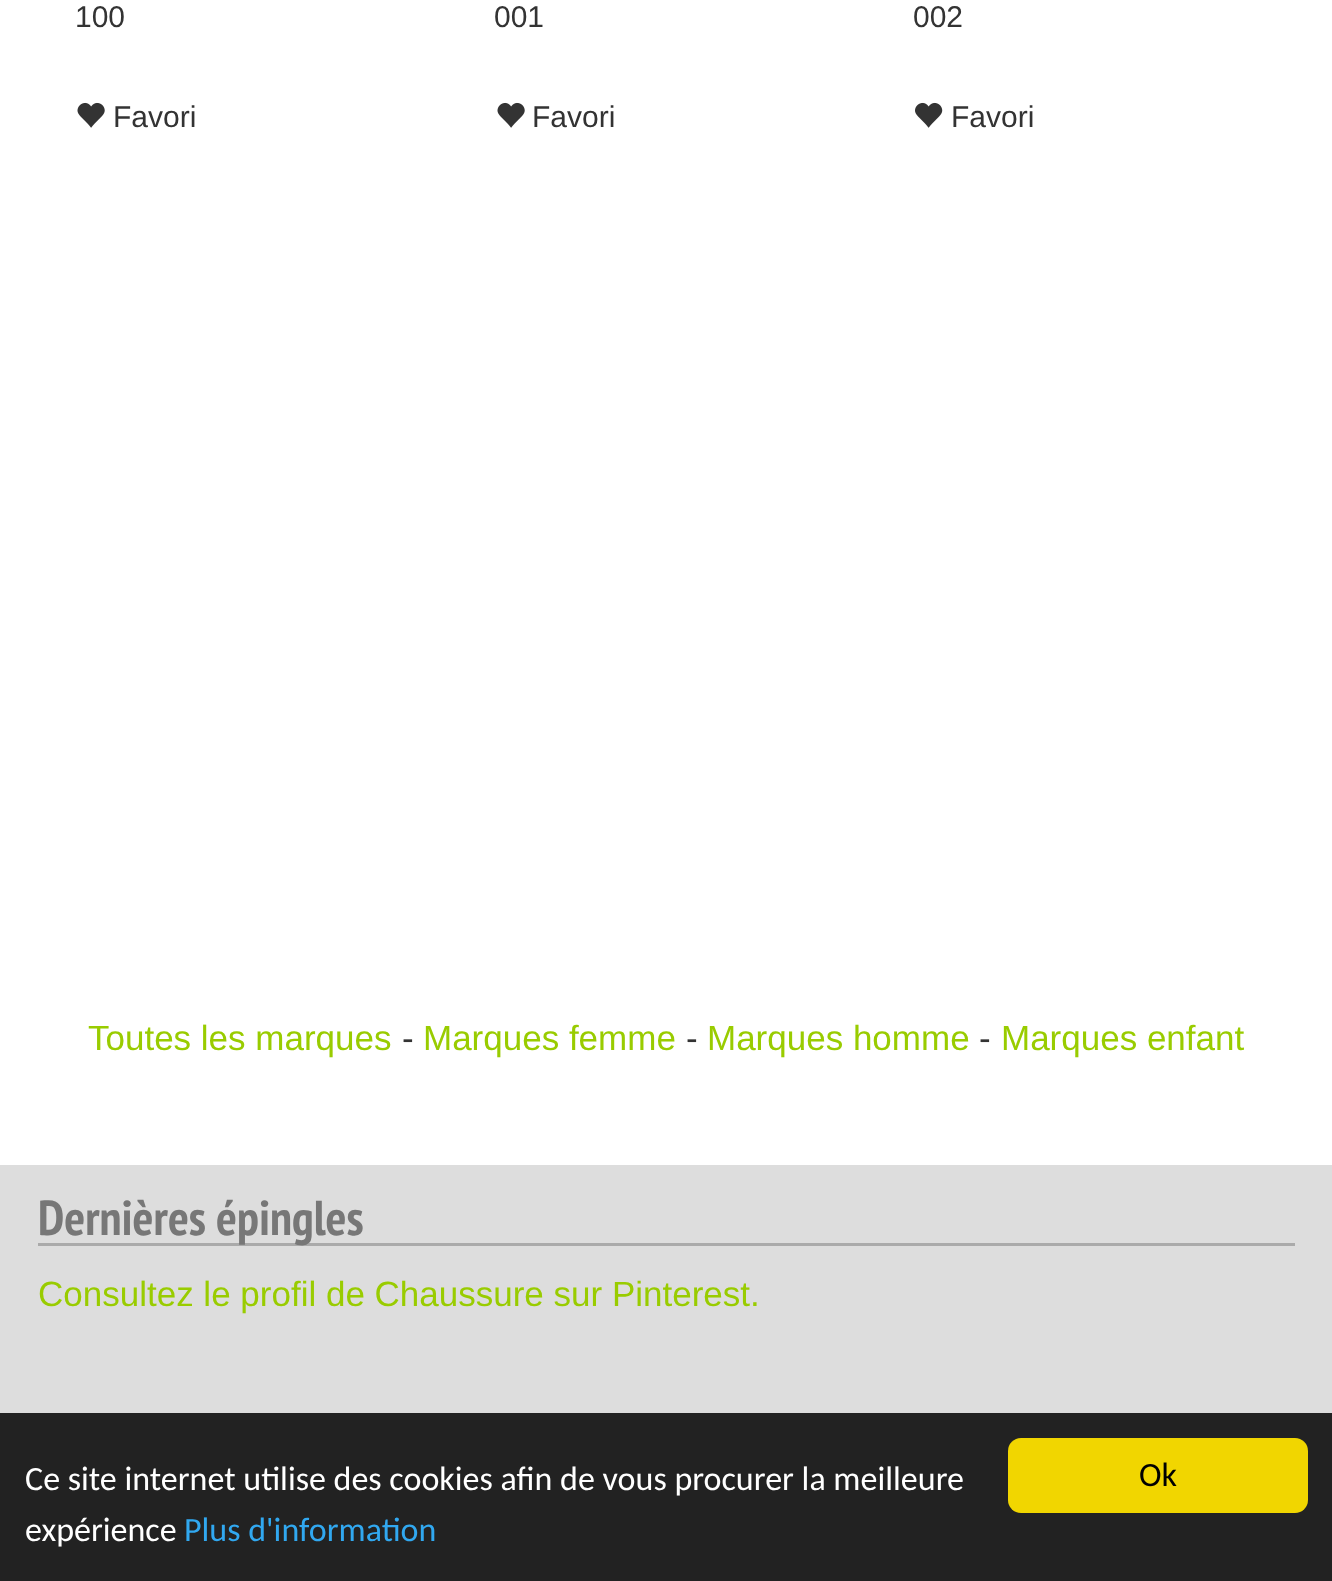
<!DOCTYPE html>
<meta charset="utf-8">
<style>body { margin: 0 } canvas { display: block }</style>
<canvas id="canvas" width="1332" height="1581"></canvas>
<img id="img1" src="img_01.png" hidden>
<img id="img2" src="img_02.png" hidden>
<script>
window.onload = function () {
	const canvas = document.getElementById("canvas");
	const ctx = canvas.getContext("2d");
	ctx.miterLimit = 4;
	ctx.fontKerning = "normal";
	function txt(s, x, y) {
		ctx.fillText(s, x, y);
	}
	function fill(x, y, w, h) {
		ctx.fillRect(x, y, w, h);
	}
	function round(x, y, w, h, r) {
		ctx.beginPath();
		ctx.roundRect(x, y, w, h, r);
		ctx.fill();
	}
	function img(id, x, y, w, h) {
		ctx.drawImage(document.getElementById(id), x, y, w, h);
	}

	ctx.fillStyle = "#FFFFFF";
	fill(0, 0, 1332, 1581);
	img("img1", 77, 102, 28, 26);
	img("img1", 497, 102, 28, 26);
	img("img2", 915, 102, 28, 26);
	ctx.fillStyle = "#DDDDDD";
	fill(0, 1165, 1332, 248);
	ctx.fillStyle = "#AAAAAA";
	fill(38, 1243, 1257, 3);
	ctx.fillStyle = "#222222";
	fill(0, 1413, 1332, 168);
	ctx.fillStyle = "#F1D600";
	round(1008, 1438, 300, 75, 13);
	ctx.font = "30px Liberation Sans";
	ctx.fillStyle = "#333333";
	txt("100", 75, 27);
	txt("Favori", 113, 127);
	txt("001", 494, 27);
	txt("Favori", 532, 127);
	txt("002", 913, 27);
	txt("Favori", 951, 127);
	ctx.font = "35px Liberation Sans";
	ctx.fillStyle = "#99CC00";
	txt("Toutes les marques", 88, 1050);
	ctx.fillStyle = "#333333";
	txt("-", 402, 1050);
	ctx.fillStyle = "#99CC00";
	txt("Marques femme", 423, 1050);
	ctx.fillStyle = "#333333";
	txt("-", 686, 1050);
	ctx.fillStyle = "#99CC00";
	txt("Marques homme", 707, 1050);
	ctx.fillStyle = "#333333";
	txt("-", 979, 1050);
	ctx.fillStyle = "#99CC00";
	txt("Marques enfant", 1001, 1050);
	ctx.font = "bold 49px PT Sans Narrow";
	ctx.fillStyle = "#777777";
	txt("Dernières épingles", 38, 1235);
	ctx.font = "35px Liberation Sans";
	ctx.fillStyle = "#99CC00";
	txt("Consultez le profil de Chaussure sur Pinterest.", 38, 1306);
	ctx.font = "34px Carlito";
	ctx.fillStyle = "#FFFFFF";
	txt("Ce site internet utilise des cookies afin de vous procurer la meilleure", 25, 1490);
	txt("expérience", 25, 1541);
	ctx.fillStyle = "#31A8F0";
	txt("Plus d'information", 184, 1541);
	ctx.fillStyle = "#000000";
	txt("Ok", 1139, 1486);
};
</script>
